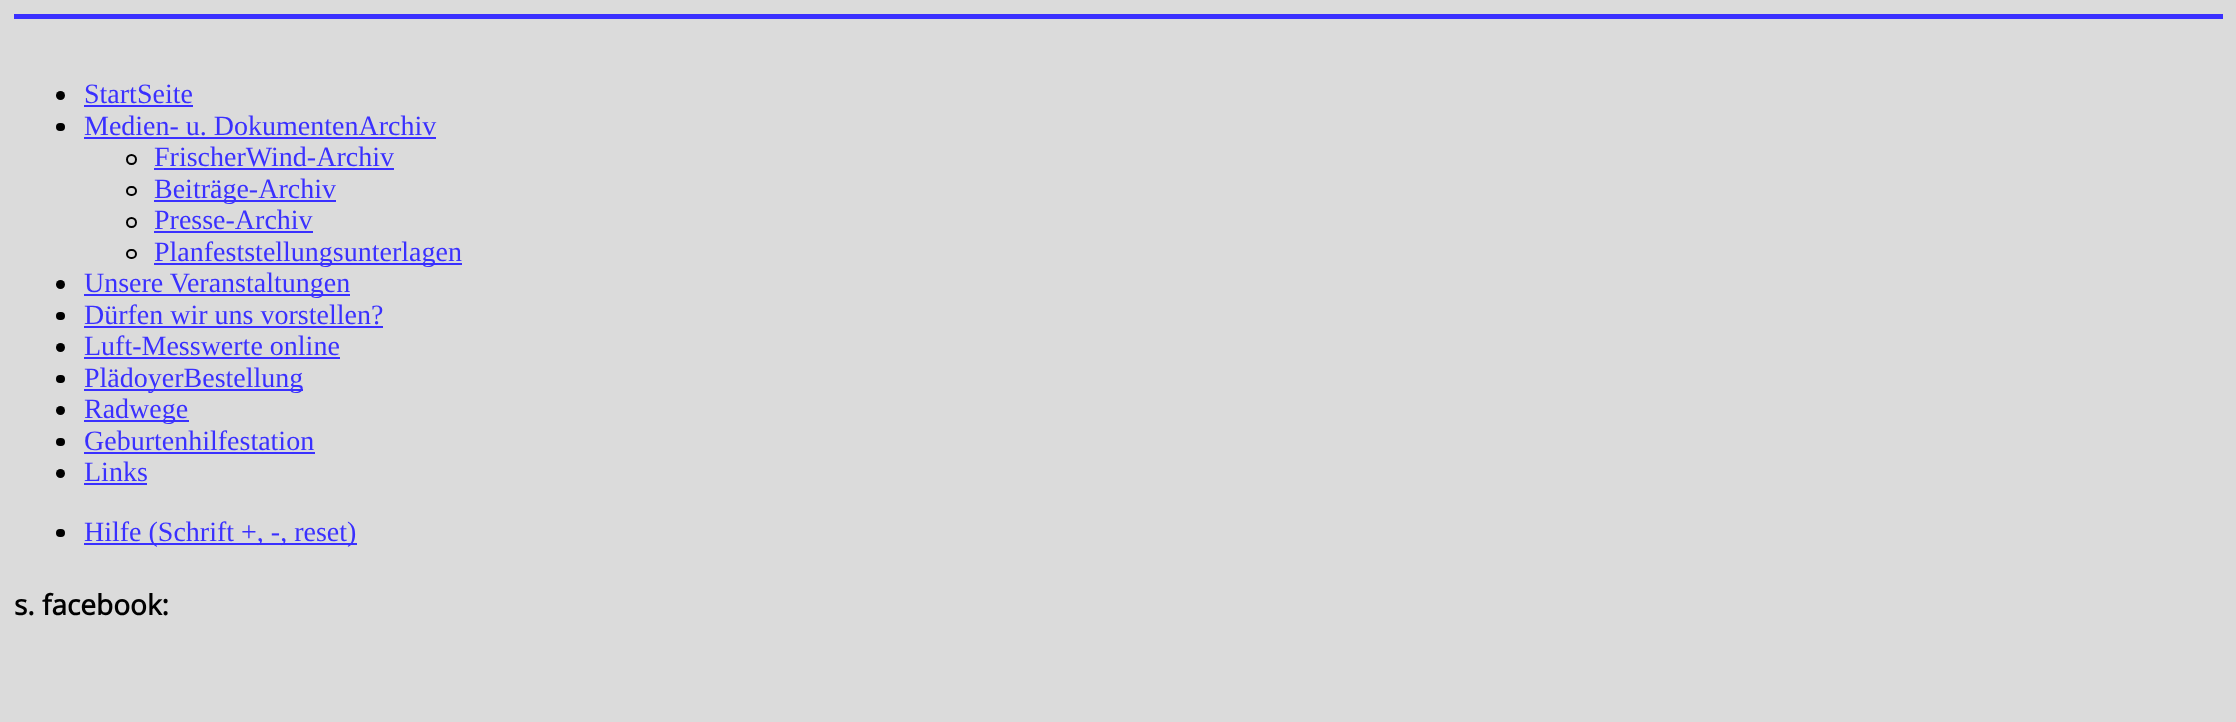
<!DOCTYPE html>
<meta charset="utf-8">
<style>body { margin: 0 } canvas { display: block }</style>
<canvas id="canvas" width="2236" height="722"></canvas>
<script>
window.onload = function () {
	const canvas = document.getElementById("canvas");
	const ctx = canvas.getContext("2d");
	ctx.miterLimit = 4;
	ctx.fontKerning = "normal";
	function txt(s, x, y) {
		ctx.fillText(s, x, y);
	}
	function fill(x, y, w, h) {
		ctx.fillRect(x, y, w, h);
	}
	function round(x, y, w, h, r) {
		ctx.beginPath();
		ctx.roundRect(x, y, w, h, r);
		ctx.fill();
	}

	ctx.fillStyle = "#DBDBDB";
	fill(0, 0, 2236, 722);
	ctx.fillStyle = "#3A30FF";
	fill(14, 14, 2209, 5);
	ctx.fillStyle = "#000000";
	ctx.beginPath();
	ctx.arc(60.5, 95.5, 4.5, 0, Math.PI * 2);
	ctx.fill();
	ctx.fillStyle = "#3A30FF";
	fill(84, 105, 109, 2);
	ctx.fillStyle = "#000000";
	round(56, 123, 9, 8, 4);
	ctx.fillStyle = "#3A30FF";
	fill(84, 137, 352, 2);
	ctx.beginPath();
	ctx.arc(131.5, 159.5, 4.5, 0, Math.PI * 2);
	ctx.strokeStyle = "#000000";
	ctx.lineWidth = 2;
	ctx.stroke();
	fill(154, 168, 240, 2);
	ctx.beginPath();
	ctx.roundRect(127, 187, 9, 8, 4);
	ctx.stroke();
	fill(154, 200, 182, 2);
	ctx.beginPath();
	ctx.arc(131.5, 222.5, 4.5, 0, Math.PI * 2);
	ctx.stroke();
	fill(154, 231, 159, 2);
	ctx.beginPath();
	ctx.roundRect(127, 250, 9, 8, 4);
	ctx.stroke();
	fill(154, 263, 308, 2);
	ctx.fillStyle = "#000000";
	ctx.beginPath();
	ctx.arc(60.5, 284.5, 4.5, 0, Math.PI * 2);
	ctx.fill();
	ctx.fillStyle = "#3A30FF";
	fill(84, 294, 266, 2);
	ctx.fillStyle = "#000000";
	round(56, 312, 9, 8, 4);
	ctx.fillStyle = "#3A30FF";
	fill(84, 326, 299, 2);
	ctx.fillStyle = "#000000";
	ctx.beginPath();
	ctx.arc(60.5, 347.5, 4.5, 0, Math.PI * 2);
	ctx.fill();
	ctx.fillStyle = "#3A30FF";
	fill(84, 357, 256, 2);
	ctx.fillStyle = "#000000";
	round(56, 375, 9, 8, 4);
	ctx.fillStyle = "#3A30FF";
	fill(84, 389, 219, 2);
	ctx.fillStyle = "#000000";
	ctx.beginPath();
	ctx.arc(60.5, 410.5, 4.5, 0, Math.PI * 2);
	ctx.fill();
	ctx.fillStyle = "#3A30FF";
	fill(84, 420, 105, 2);
	ctx.fillStyle = "#000000";
	round(56, 438, 9, 8, 4);
	ctx.fillStyle = "#3A30FF";
	fill(84, 452, 231, 2);
	ctx.fillStyle = "#000000";
	ctx.beginPath();
	ctx.arc(60.5, 473.5, 4.5, 0, Math.PI * 2);
	ctx.fill();
	ctx.fillStyle = "#3A30FF";
	fill(84, 483, 63, 2);
	ctx.fillStyle = "#000000";
	round(56, 529, 9, 8, 4);
	ctx.fillStyle = "#3A30FF";
	fill(84, 543, 273, 2);
	ctx.font = "28px Liberation Serif";
	txt("StartSeite", 84, 103);
	txt("Medien- u. DokumentenArchiv", 84, 135);
	txt("FrischerWind-Archiv", 154, 166);
	txt("Beiträge-Archiv", 154, 198);
	txt("Presse-Archiv", 154, 229);
	txt("Planfeststellungsunterlagen", 154, 261);
	txt("Unsere Veranstaltungen", 84, 292);
	txt("Dürfen wir uns vorstellen?", 84, 324);
	txt("Luft-Messwerte online", 84, 355);
	txt("PlädoyerBestellung", 84, 387);
	txt("Radwege", 84, 418);
	txt("Geburtenhilfestation", 84, 450);
	txt("Links", 84, 481);
	txt("Hilfe (Schrift +, -, reset)", 84, 541);
	ctx.font = "bold 28px Open Sans";
	ctx.fillStyle = "#000000";
	txt("s. facebook:", 14, 615);
};
</script>
